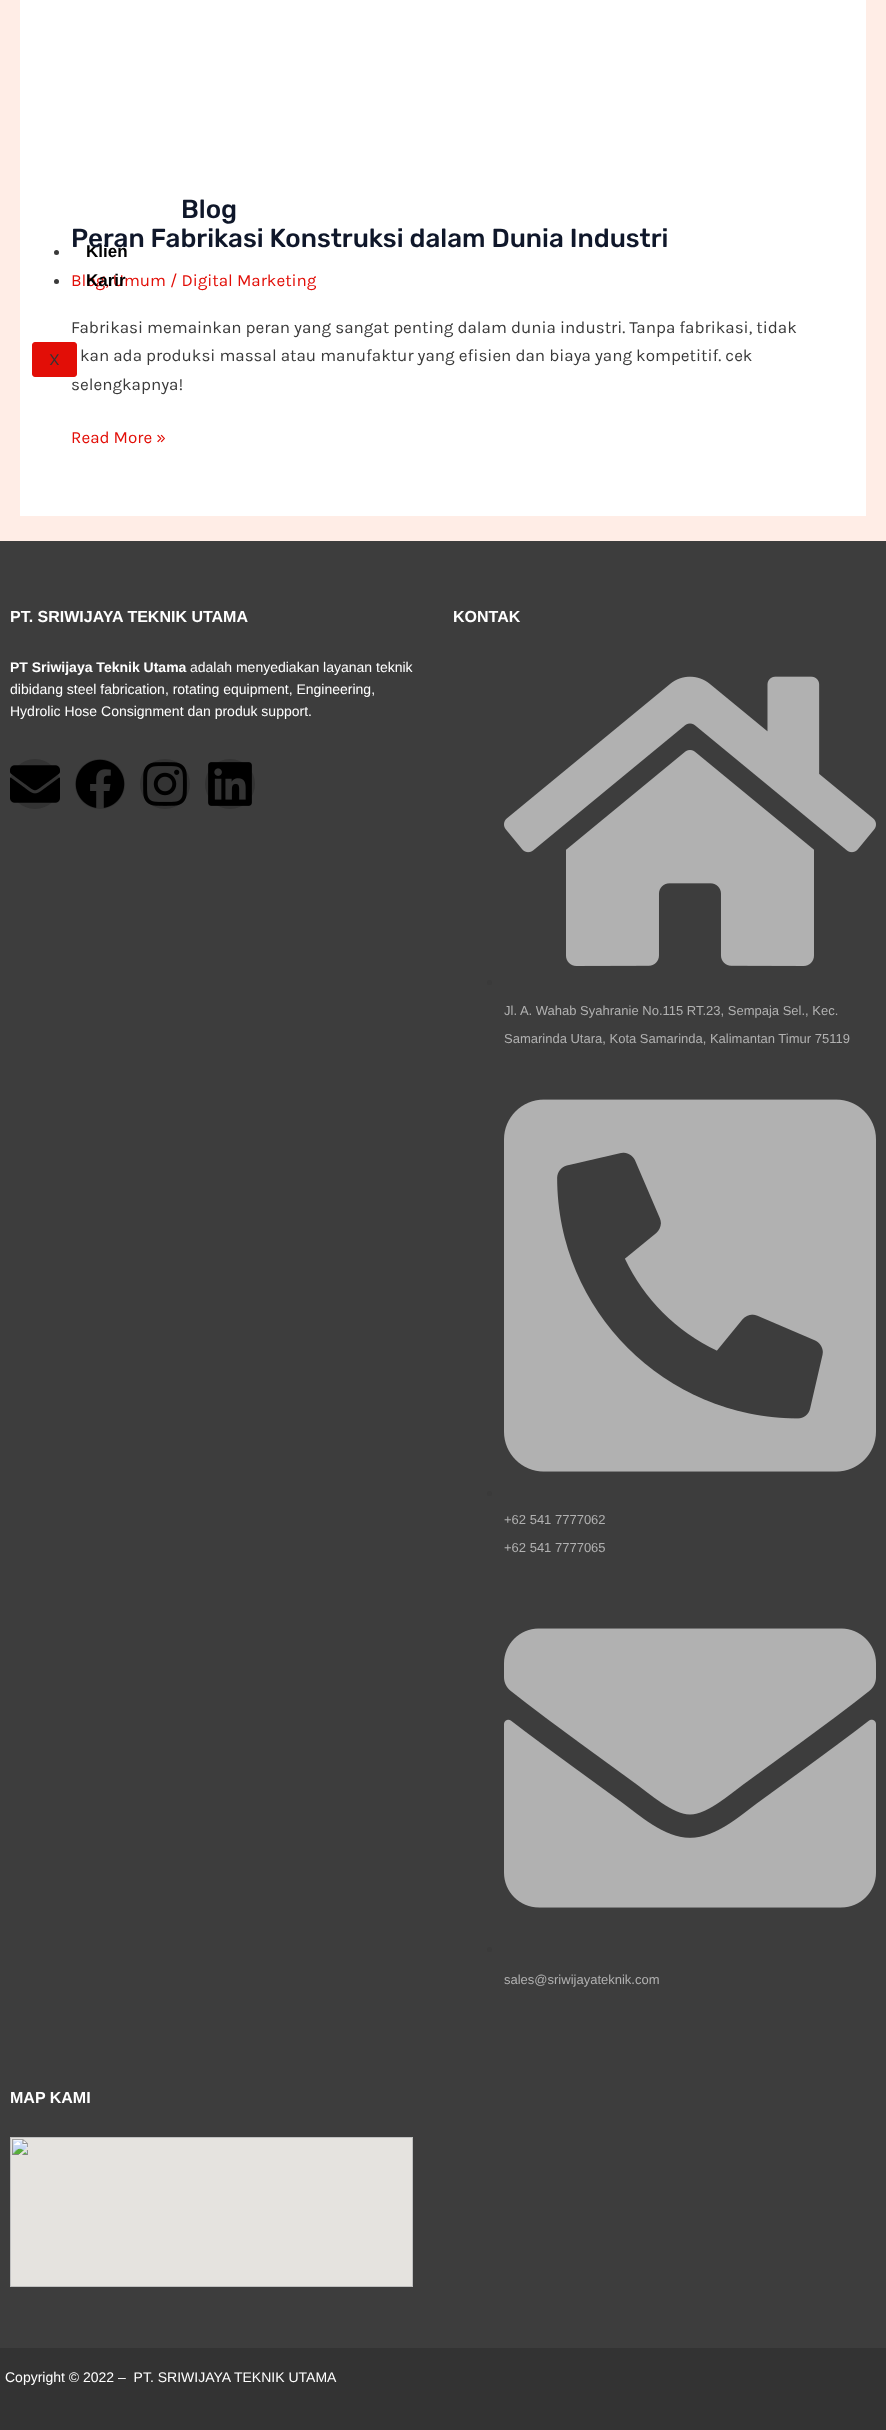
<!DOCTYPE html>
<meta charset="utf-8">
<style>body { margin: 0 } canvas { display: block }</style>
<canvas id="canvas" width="886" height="2430"></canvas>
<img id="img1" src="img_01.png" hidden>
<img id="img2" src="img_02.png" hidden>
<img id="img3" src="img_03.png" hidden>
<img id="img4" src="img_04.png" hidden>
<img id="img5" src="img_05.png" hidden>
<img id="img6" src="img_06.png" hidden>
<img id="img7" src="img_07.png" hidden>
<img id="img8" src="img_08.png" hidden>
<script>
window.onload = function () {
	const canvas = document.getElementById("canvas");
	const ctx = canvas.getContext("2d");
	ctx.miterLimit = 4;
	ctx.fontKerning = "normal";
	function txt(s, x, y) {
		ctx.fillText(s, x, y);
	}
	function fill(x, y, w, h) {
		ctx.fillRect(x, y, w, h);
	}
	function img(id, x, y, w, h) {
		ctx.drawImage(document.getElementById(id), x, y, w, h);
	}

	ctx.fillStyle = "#FFEDE6";
	fill(0, 0, 886, 2430);
	ctx.fillStyle = "#FFFFFF";
	fill(20, 0, 846, 516);
	ctx.fillStyle = "#3A3A3A";
	ctx.beginPath();
	ctx.arc(56.5, 252.5, 2.5, 0, Math.PI * 2);
	ctx.fill();
	ctx.beginPath();
	ctx.arc(56.5, 281.5, 2.5, 0, Math.PI * 2);
	ctx.fill();
	ctx.fillStyle = "#E20E07";
	ctx.beginPath();
	ctx.roundRect(32.5, 342.5, 44, 34, 2.5);
	ctx.fill();
	ctx.strokeStyle = "#E20E07";
	ctx.stroke();
	ctx.fillStyle = "#3D3D3D";
	fill(0, 541, 886, 1807);
	ctx.fillStyle = "#333333";
	ctx.beginPath();
	ctx.arc(35, 784, 25, 0, Math.PI * 2);
	ctx.fill();
	img("img1", 10, 765, 50, 38);
	ctx.beginPath();
	ctx.arc(100, 784, 25, 0, Math.PI * 2);
	ctx.fill();
	img("img2", 75, 759, 50, 49);
	ctx.beginPath();
	ctx.arc(165, 784, 25, 0, Math.PI * 2);
	ctx.fill();
	img("img3", 143, 762, 44, 44);
	ctx.beginPath();
	ctx.arc(230, 784, 25, 0, Math.PI * 2);
	ctx.fill();
	img("img4", 208, 762, 44, 44);
	ctx.fillStyle = "#3A3A3A";
	ctx.beginPath();
	ctx.arc(489.5, 982.5, 2.5, 0, Math.PI * 2);
	ctx.fill();
	img("img5", 504, 676, 372, 290);
	img("img6", 504, 1099, 372, 373);
	ctx.beginPath();
	ctx.arc(489.5, 1493.5, 2.5, 0, Math.PI * 2);
	ctx.fill();
	ctx.beginPath();
	ctx.arc(489.5, 1949.5, 2.5, 0, Math.PI * 2);
	ctx.fill();
	img("img7", 504, 1628, 372, 280);
	img("img8", 10, 2137, 403, 150);
	ctx.fillStyle = "#333333";
	fill(0, 2348, 886, 82);
	ctx.font = "300 26px Rubik";
	ctx.fillStyle = "#0F172A";
	txt("Blog", 181, 218);
	ctx.font = "bold 17px Liberation Sans";
	ctx.fillStyle = "#000000";
	txt("Klien", 86, 257);
	ctx.font = "17px Karla";
	ctx.fillStyle = "#333333";
	txt("X", 49, 365);
	ctx.font = "300 26px Rubik";
	ctx.fillStyle = "#0F172A";
	txt("Peran Fabrikasi Konstruksi dalam Dunia Industri", 71, 247);
	ctx.font = "17px Karla";
	ctx.fillStyle = "#E20E07";
	txt("Blog, Umum / Digital Marketing", 71, 286);
	ctx.font = "bold 17px Liberation Sans";
	ctx.fillStyle = "#000000";
	txt("Karir", 86, 286);
	ctx.font = "17px Karla";
	ctx.fillStyle = "#3A3A3A";
	txt("Fabrikasi memainkan peran yang sangat penting dalam dunia industri. Tanpa fabrikasi, tidak", 71, 333);
	txt("kan ada produksi massal atau manufaktur yang efisien dan biaya yang kompetitif. cek", 80, 361);
	txt("selengkapnya!", 71, 390);
	ctx.fillStyle = "#E20E07";
	txt("Read More »", 71, 443);
	ctx.font = "bold 16px Liberation Sans";
	ctx.fillStyle = "#FFFFFF";
	txt("PT. SRIWIJAYA TEKNIK UTAMA", 10, 622);
	ctx.font = "bold 14px Liberation Sans";
	txt("PT Sriwijaya Teknik Utama", 10, 672);
	ctx.font = "14px Liberation Sans";
	txt("adalah menyediakan layanan teknik", 190, 672);
	txt("dibidang steel fabrication, rotating equipment, Engineering,", 10, 694);
	txt("Hydrolic Hose Consignment dan produk support.", 10, 716);
	ctx.font = "bold 16px Liberation Sans";
	txt("KONTAK", 453, 622);
	ctx.font = "13px Liberation Sans";
	ctx.fillStyle = "#B1B1B1";
	txt("Jl. A. Wahab Syahranie No.115 RT.23, Sempaja Sel., Kec.", 504, 1015);
	txt("Samarinda Utara, Kota Samarinda, Kalimantan Timur 75119", 504, 1043);
	txt("+62 541 7777062", 504, 1524);
	txt("+62 541 7777065", 504, 1552);
	txt("sales@sriwijayateknik.com", 504, 1984);
	ctx.font = "bold 16px Liberation Sans";
	ctx.fillStyle = "#FFFFFF";
	txt("MAP KAMI", 10, 2103);
	ctx.font = "14px Liberation Sans";
	txt("Copyright © 2022 –  PT. SRIWIJAYA TEKNIK UTAMA", 5, 2382);
};
</script>
